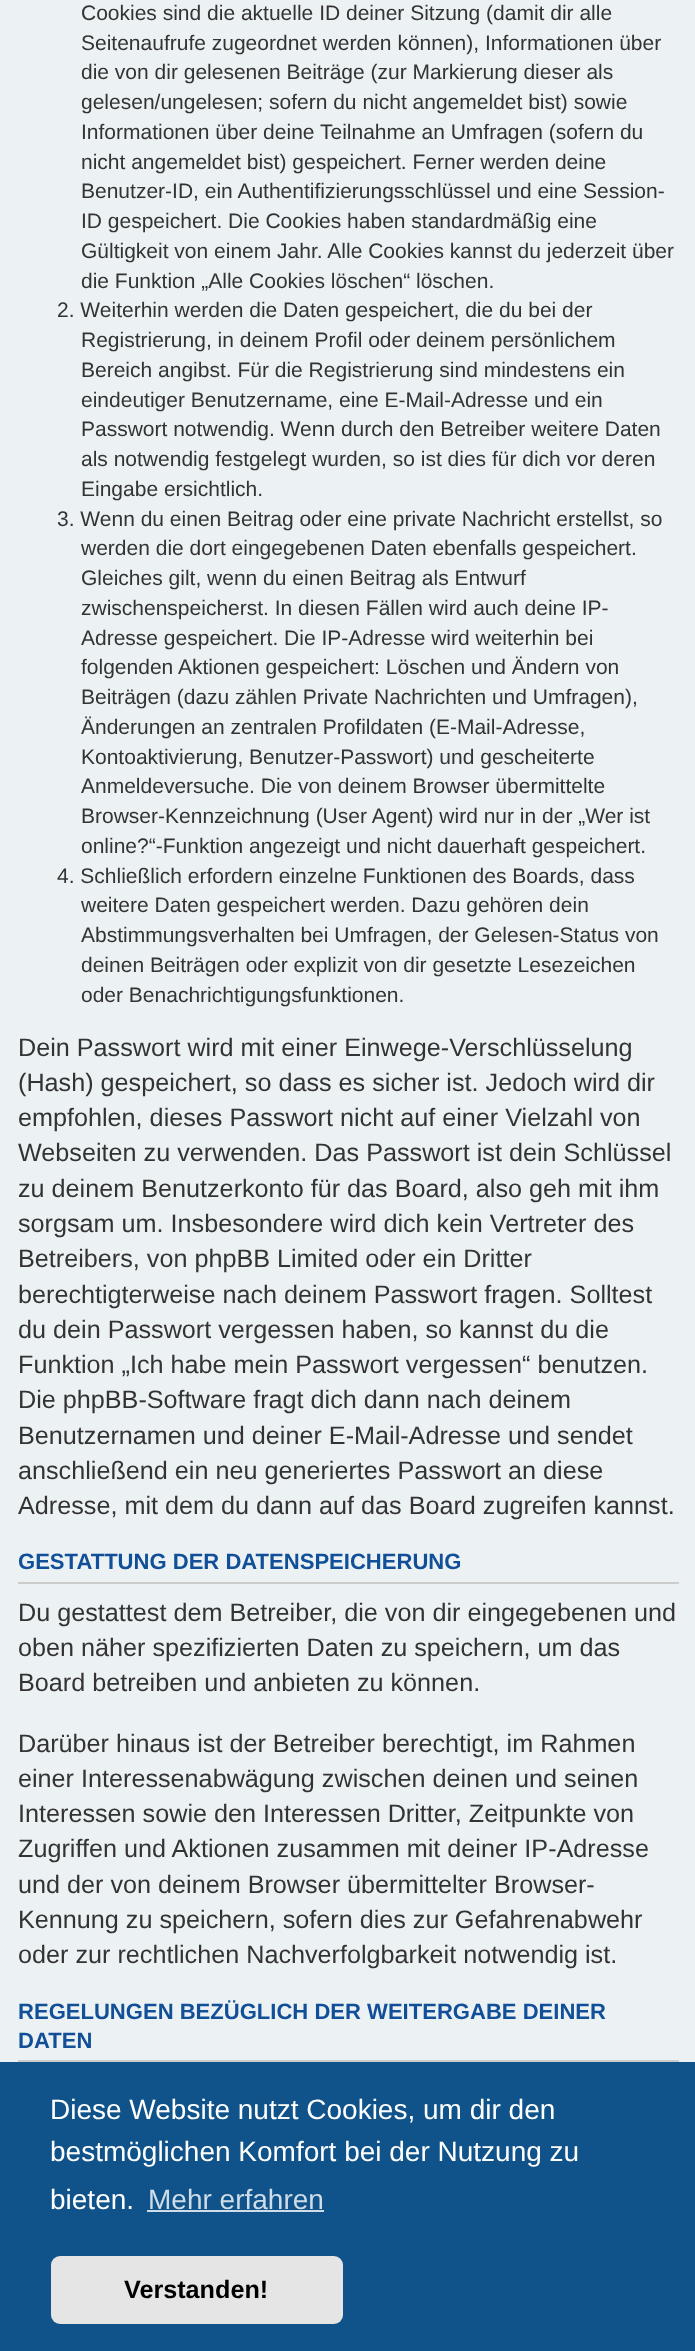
<!DOCTYPE html>
<meta charset="utf-8">
<style>body { margin: 0 } canvas { display: block }</style>
<canvas id="canvas" width="695" height="2351"></canvas>
<script>
window.onload = function () {
	const canvas = document.getElementById("canvas");
	const ctx = canvas.getContext("2d");
	ctx.miterLimit = 4;
	ctx.fontKerning = "normal";
	function txt(s, x, y) {
		ctx.fillText(s, x, y);
	}
	function fill(x, y, w, h) {
		ctx.fillRect(x, y, w, h);
	}
	function round(x, y, w, h, r) {
		ctx.beginPath();
		ctx.roundRect(x, y, w, h, r);
		ctx.fill();
	}

	ctx.fillStyle = "#ECF1F3";
	fill(0, 0, 695, 2351);
	ctx.fillStyle = "#CCCCCC";
	fill(18, 1582, 661, 2);
	fill(18, 2060, 661, 2);
	ctx.fillStyle = "#0F538A";
	fill(0, 2062, 695, 289);
	ctx.fillStyle = "#CFDDE8";
	fill(147, 2210, 177, 2);
	ctx.fillStyle = "#E5E5E5";
	round(51, 2256, 292, 68, 9);
	ctx.font = "21px Liberation Sans";
	ctx.fillStyle = "#333333";
	txt("Cookies sind die aktuelle ID deiner Sitzung (damit dir alle", 81, 20);
	txt("Seitenaufrufe zugeordnet werden können), Informationen über", 81, 50);
	txt("die von dir gelesenen Beiträge (zur Markierung dieser als", 81, 79);
	txt("gelesen/ungelesen; sofern du nicht angemeldet bist) sowie", 81, 109);
	txt("Informationen über deine Teilnahme an Umfragen (sofern du", 81, 139);
	txt("nicht angemeldet bist) gespeichert. Ferner werden deine", 81, 169);
	txt("Benutzer-ID, ein Authentifizierungsschlüssel und eine Session-", 81, 198);
	txt("ID gespeichert. Die Cookies haben standardmäßig eine", 81, 228);
	txt("Gültigkeit von einem Jahr. Alle Cookies kannst du jederzeit über", 81, 258);
	txt("die Funktion „Alle Cookies löschen“ löschen.", 81, 288);
	txt("2. Weiterhin werden die Daten gespeichert, die du bei der", 57, 317);
	txt("Registrierung, in deinem Profil oder deinem persönlichem", 81, 347);
	txt("Bereich angibst. Für die Registrierung sind mindestens ein", 81, 377);
	txt("eindeutiger Benutzername, eine E-Mail-Adresse und ein", 81, 407);
	txt("Passwort notwendig. Wenn durch den Betreiber weitere Daten", 81, 436);
	txt("als notwendig festgelegt wurden, so ist dies für dich vor deren", 81, 466);
	txt("Eingabe ersichtlich.", 81, 496);
	txt("3. Wenn du einen Beitrag oder eine private Nachricht erstellst, so", 57, 526);
	txt("werden die dort eingegebenen Daten ebenfalls gespeichert.", 81, 555);
	txt("Gleiches gilt, wenn du einen Beitrag als Entwurf", 81, 585);
	txt("zwischenspeicherst. In diesen Fällen wird auch deine IP-", 81, 615);
	txt("Adresse gespeichert. Die IP-Adresse wird weiterhin bei", 81, 645);
	txt("folgenden Aktionen gespeichert: Löschen und Ändern von", 81, 674);
	txt("Beiträgen (dazu zählen Private Nachrichten und Umfragen),", 81, 704);
	txt("Änderungen an zentralen Profildaten (E-Mail-Adresse,", 81, 734);
	txt("Kontoaktivierung, Benutzer-Passwort) und gescheiterte", 81, 764);
	txt("Anmeldeversuche. Die von deinem Browser übermittelte", 81, 793);
	txt("Browser-Kennzeichnung (User Agent) wird nur in der „Wer ist", 81, 823);
	txt("online?“-Funktion angezeigt und nicht dauerhaft gespeichert.", 81, 853);
	txt("4. Schließlich erfordern einzelne Funktionen des Boards, dass", 57, 883);
	txt("weitere Daten gespeichert werden. Dazu gehören dein", 81, 912);
	txt("Abstimmungsverhalten bei Umfragen, der Gelesen-Status von", 81, 942);
	txt("deinen Beiträgen oder explizit von dir gesetzte Lesezeichen", 81, 972);
	txt("oder Benachrichtigungsfunktionen.", 81, 1002);
	ctx.font = "25.2px Liberation Sans";
	txt("Dein Passwort wird mit einer Einwege-Verschlüsselung", 18, 1056);
	txt("(Hash) gespeichert, so dass es sicher ist. Jedoch wird dir", 18, 1091);
	txt("empfohlen, dieses Passwort nicht auf einer Vielzahl von", 18, 1126);
	txt("Webseiten zu verwenden. Das Passwort ist dein Schlüssel", 18, 1161);
	txt("zu deinem Benutzerkonto für das Board, also geh mit ihm", 18, 1197);
	txt("sorgsam um. Insbesondere wird dich kein Vertreter des", 18, 1232);
	txt("Betreibers, von phpBB Limited oder ein Dritter", 18, 1267);
	txt("berechtigterweise nach deinem Passwort fragen. Solltest", 18, 1303);
	txt("du dein Passwort vergessen haben, so kannst du die", 18, 1338);
	txt("Funktion „Ich habe mein Passwort vergessen“ benutzen.", 18, 1373);
	txt("Die phpBB-Software fragt dich dann nach deinem", 18, 1408);
	txt("Benutzernamen und deiner E-Mail-Adresse und sendet", 18, 1444);
	txt("anschließend ein neu generiertes Passwort an diese", 18, 1479);
	txt("Adresse, mit dem du dann auf das Board zugreifen kannst.", 18, 1514);
	ctx.font = "bold 22.05px Liberation Sans";
	ctx.fillStyle = "#115098";
	txt("GESTATTUNG DER DATENSPEICHERUNG", 18, 1569);
	ctx.font = "25.2px Liberation Sans";
	ctx.fillStyle = "#333333";
	txt("Du gestattest dem Betreiber, die von dir eingegebenen und", 18, 1621);
	txt("oben näher spezifizierten Daten zu speichern, um das", 18, 1656);
	txt("Board betreiben und anbieten zu können.", 18, 1691);
	txt("Darüber hinaus ist der Betreiber berechtigt, im Rahmen", 18, 1752);
	txt("einer Interessenabwägung zwischen deinen und seinen", 18, 1787);
	txt("Interessen sowie den Interessen Dritter, Zeitpunkte von", 18, 1822);
	txt("Zugriffen und Aktionen zusammen mit deiner IP-Adresse", 18, 1857);
	txt("und der von deinem Browser übermittelter Browser-", 18, 1893);
	txt("Kennung zu speichern, sofern dies zur Gefahrenabwehr", 18, 1928);
	txt("oder zur rechtlichen Nachverfolgbarkeit notwendig ist.", 18, 1963);
	ctx.font = "bold 22.05px Liberation Sans";
	ctx.fillStyle = "#115098";
	txt("REGELUNGEN BEZÜGLICH DER WEITERGABE DEINER", 18, 2019);
	txt("DATEN", 18, 2048);
	ctx.font = "28px Liberation Sans";
	ctx.fillStyle = "#FFFFFF";
	txt("Diese Website nutzt Cookies, um dir den", 50, 2119);
	txt("bestmöglichen Komfort bei der Nutzung zu", 50, 2161);
	txt("bieten.", 50, 2209);
	ctx.fillStyle = "#CFDDE8";
	txt("Mehr erfahren", 148, 2209);
	ctx.font = "bold 25.2px Liberation Sans";
	ctx.fillStyle = "#000000";
	txt("Verstanden!", 124, 2298);
};
</script>
